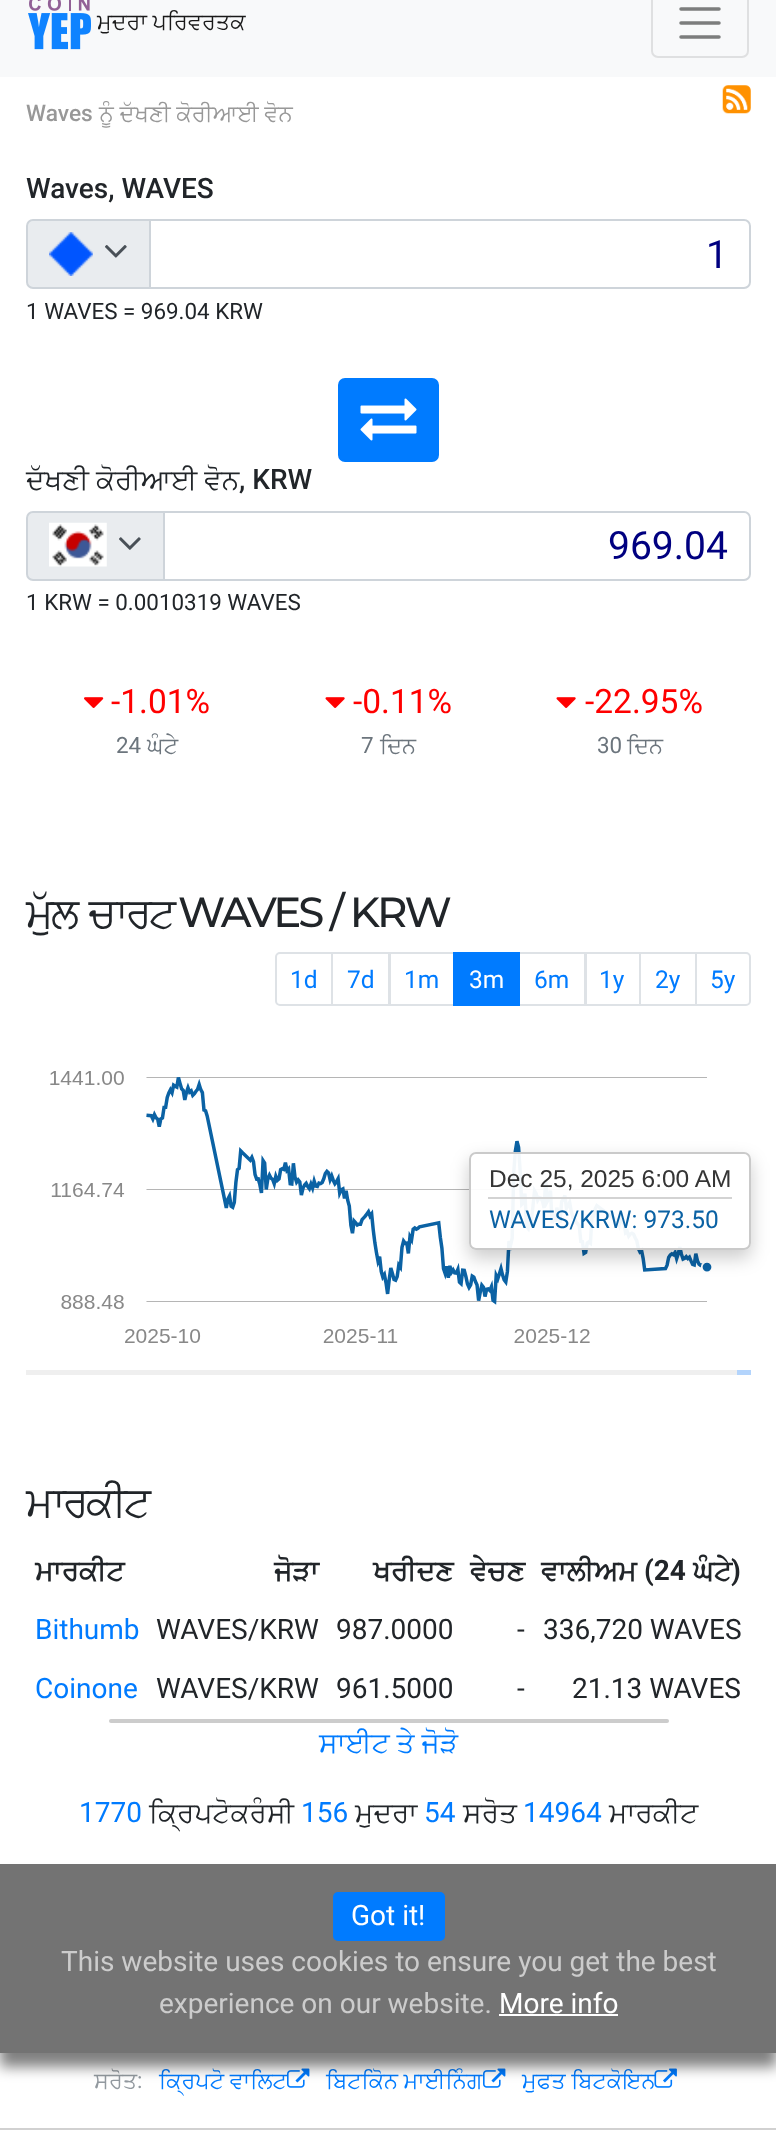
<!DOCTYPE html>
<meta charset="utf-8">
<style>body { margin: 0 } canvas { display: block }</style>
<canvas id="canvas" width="776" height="2140"></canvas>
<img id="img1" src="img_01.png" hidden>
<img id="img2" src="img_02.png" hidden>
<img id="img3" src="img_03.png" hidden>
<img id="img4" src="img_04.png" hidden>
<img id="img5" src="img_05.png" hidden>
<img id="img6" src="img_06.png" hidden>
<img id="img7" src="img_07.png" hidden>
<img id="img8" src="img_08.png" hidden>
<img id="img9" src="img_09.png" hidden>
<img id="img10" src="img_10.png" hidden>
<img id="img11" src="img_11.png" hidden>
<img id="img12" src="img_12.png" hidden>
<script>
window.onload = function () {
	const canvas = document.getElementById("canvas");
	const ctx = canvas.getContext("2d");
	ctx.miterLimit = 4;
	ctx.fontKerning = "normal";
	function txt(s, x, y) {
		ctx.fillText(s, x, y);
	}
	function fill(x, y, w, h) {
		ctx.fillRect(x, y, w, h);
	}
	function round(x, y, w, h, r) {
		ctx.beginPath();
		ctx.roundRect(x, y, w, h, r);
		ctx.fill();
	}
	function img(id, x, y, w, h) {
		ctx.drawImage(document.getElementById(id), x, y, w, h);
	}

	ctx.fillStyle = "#FFFFFF";
	fill(0, 0, 776, 2140);
	ctx.fillStyle = "#F8F9FA";
	fill(0, 0, 776, 77);
	img("img1", 28, 0, 63, 50);
	ctx.beginPath();
	ctx.roundRect(652, -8, 96, 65, 6);
	ctx.strokeStyle = "#DFE0E1";
	ctx.lineWidth = 2;
	ctx.stroke();
	ctx.beginPath();
	ctx.moveTo(681, 9);
	ctx.lineTo(719, 9);
	ctx.moveTo(681, 23);
	ctx.lineTo(719, 23);
	ctx.moveTo(681, 37);
	ctx.lineTo(719, 37);
	ctx.strokeStyle = "#7C7D7D";
	ctx.lineWidth = 3.5;
	ctx.lineCap = "round";
	ctx.stroke();
	img("img2", 722, 85, 29, 29);
	ctx.fillStyle = "#E9ECEF";
	ctx.beginPath();
	ctx.roundRect(27, 220, 123, 68, [6, 0, 0, 6]);
	ctx.fill();
	ctx.strokeStyle = "#CED4DA";
	ctx.lineWidth = 2;
	ctx.stroke();
	img("img3", 49, 232, 44, 44);
	img("img4", 105, 245, 22, 13);
	ctx.beginPath();
	ctx.roundRect(150, 220, 600, 68, [0, 6, 6, 0]);
	ctx.stroke();
	ctx.fillStyle = "#007BFF";
	ctx.beginPath();
	ctx.roundRect(339, 379, 99, 82, 6);
	ctx.fill();
	ctx.strokeStyle = "#007BFF";
	ctx.stroke();
	img("img5", 360, 398, 57, 43);
	ctx.fillStyle = "#E9ECEF";
	ctx.beginPath();
	ctx.roundRect(27, 512, 137, 68, [6, 0, 0, 6]);
	ctx.fill();
	ctx.strokeStyle = "#CED4DA";
	ctx.stroke();
	img("img6", 49, 522, 58, 45);
	img("img7", 119, 537, 22, 13);
	ctx.beginPath();
	ctx.roundRect(164, 512, 586, 68, [0, 6, 6, 0]);
	ctx.stroke();
	img("img8", 84, 697, 20, 11);
	img("img9", 325, 697, 20, 11);
	img("img9", 556, 697, 20, 11);
	ctx.beginPath();
	ctx.roundRect(276, 953, 56, 52, [4, 0, 0, 4]);
	ctx.strokeStyle = "#DEE2E6";
	ctx.stroke();
	ctx.strokeRect(332, 953, 57, 52);
	ctx.strokeRect(390, 953, 64, 52);
	ctx.strokeRect(519, 953, 66, 52);
	ctx.fillStyle = "#007BFF";
	fill(453, 952, 67, 54);
	ctx.strokeRect(586, 953, 54, 52);
	ctx.strokeRect(640, 953, 56, 52);
	ctx.fillStyle = "#FFFFFF";
	ctx.beginPath();
	ctx.roundRect(696, 953, 54, 52, [0, 4, 4, 0]);
	ctx.fill();
	ctx.stroke();
	img("img10", 50, 1071, 662, 272);
	ctx.save();
	ctx.beginPath();
	ctx.moveTo(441, 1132);
	ctx.lineTo(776, 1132);
	ctx.lineTo(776, 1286);
	ctx.lineTo(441, 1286);
	ctx.closePath();
	ctx.moveTo(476, 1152);
	ctx.lineTo(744, 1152);
	ctx.bezierCurveTo(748, 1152, 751, 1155, 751, 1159);
	ctx.lineTo(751, 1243);
	ctx.bezierCurveTo(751, 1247, 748, 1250, 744, 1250);
	ctx.lineTo(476, 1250);
	ctx.bezierCurveTo(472, 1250, 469, 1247, 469, 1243);
	ctx.lineTo(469, 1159);
	ctx.bezierCurveTo(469, 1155, 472, 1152, 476, 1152);
	ctx.closePath();
	ctx.clip("evenodd");
	ctx.fillStyle = "rgba(0, 0, 0, 0.2)";
	ctx.filter = "blur(9px)";
	ctx.beginPath();
	ctx.roundRect(469, 1160, 282, 98, 7);
	ctx.fill();
	ctx.filter = "none";
	ctx.restore();
	ctx.fillStyle = "rgba(255, 255, 255, 0.95)";
	ctx.beginPath();
	ctx.roundRect(470, 1153, 280, 96, 6);
	ctx.fill();
	ctx.strokeStyle = "#CACACA";
	ctx.stroke();
	ctx.fillStyle = "#D3D3D3";
	fill(488, 1197, 244, 2);
	ctx.fillStyle = "#EFEFEF";
	fill(26, 1370, 711, 5);
	ctx.fillStyle = "#B3D4FC";
	fill(737, 1370, 14, 5);
	ctx.fillStyle = "#CCCCCC";
	round(109, 1719, 560, 4, 2);
	img("img11", 483, 2068, 23, 20);
	ctx.fillStyle = "#D1D1D1";
	fill(0, 2128, 776, 2);
	ctx.font = "22.4px FreeSans";
	ctx.fillStyle = "#191919";
	txt("ਮੁਦਰਾ ਪਰਿਵਰਤਕ", 97, 29);
	ctx.font = "500 22.75px Roboto";
	ctx.fillStyle = "#989898";
	txt("Waves", 26, 121);
	ctx.font = "22.75px FreeSans";
	txt("ਨੂੰ ਦੱਖਣੀ ਕੋਰੀਆਈ ਵੋਨ", 99, 121);
	ctx.font = "500 28px Roboto";
	ctx.fillStyle = "#212529";
	txt("Waves, WAVES", 26, 198);
	ctx.font = "39px Roboto";
	ctx.fillStyle = "#000080";
	txt("1", 706, 268);
	ctx.font = "22.4px Roboto";
	ctx.fillStyle = "#212529";
	txt("1 WAVES = 969.04 KRW", 26, 319);
	ctx.font = "28px FreeSans";
	txt("ਦੱਖਣੀ ਕੋਰੀਆਈ ਵੋਨ", 26, 489);
	ctx.font = "500 28px Roboto";
	txt(", KRW", 239, 489);
	ctx.font = "39px Roboto";
	ctx.fillStyle = "#000080";
	txt("969.04", 608, 559);
	ctx.font = "22.4px Roboto";
	ctx.fillStyle = "#212529";
	txt("1 KRW = 0.0010319 WAVES", 26, 610);
	ctx.font = "33.5px Roboto";
	ctx.fillStyle = "#FF0000";
	txt("-1.01%", 111, 713);
	ctx.font = "22.4px Roboto";
	ctx.fillStyle = "#6C757D";
	txt("24", 116, 753);
	ctx.font = "22.4px FreeSans";
	txt("ਘੰਟੇ", 147, 753);
	ctx.font = "33.5px Roboto";
	ctx.fillStyle = "#FF0000";
	txt("-0.11%", 353, 713);
	ctx.font = "22.4px Roboto";
	ctx.fillStyle = "#6C757D";
	txt("7", 361, 753);
	ctx.font = "22.4px FreeSans";
	txt("ਦਿਨ", 380, 753);
	ctx.font = "33.5px Roboto";
	ctx.fillStyle = "#FF0000";
	txt("-22.95%", 585, 713);
	ctx.font = "22.4px Roboto";
	ctx.fillStyle = "#6C757D";
	txt("30", 597, 753);
	ctx.font = "22.4px FreeSans";
	txt("ਦਿਨ", 627, 753);
	ctx.letterSpacing = "-3px";
	ctx.wordSpacing = "5px";
	ctx.font = "42px FreeSans";
	ctx.fillStyle = "#212529";
	txt("ਮੁੱਲ ਚਾਰਟ", 26, 927);
	ctx.wordSpacing = "0px";
	ctx.font = "500 42px Montserrat";
	txt("WAVES / KRW", 178, 927);
	ctx.letterSpacing = "0px";
	ctx.font = "24.5px Roboto";
	ctx.fillStyle = "#007BFF";
	txt("1d", 290, 988);
	txt("7d", 347, 988);
	txt("1m", 404, 988);
	ctx.fillStyle = "#FFFFFF";
	txt("3m", 469, 988);
	ctx.fillStyle = "#007BFF";
	txt("6m", 534, 988);
	txt("1y", 599, 988);
	txt("2y", 655, 988);
	txt("5y", 710, 988);
	ctx.font = "24.5px Liberation Sans";
	ctx.fillStyle = "#353535";
	txt("Dec 25, 2025 6:00 AM", 489, 1187);
	ctx.font = "24.5px Roboto";
	ctx.fillStyle = "#0B62A4";
	txt("WAVES/KRW: 973.50", 489, 1228);
	ctx.letterSpacing = "-3px";
	ctx.font = "42px FreeSans";
	ctx.fillStyle = "#212529";
	txt("ਮਾਰਕੀਟ", 26, 1516);
	ctx.letterSpacing = "0px";
	ctx.font = "bold 28px FreeSans";
	txt("ਮਾਰਕੀਟ", 35, 1580);
	txt("ਜੋੜਾ", 274, 1580);
	txt("ਖਰੀਦਣ", 373, 1580);
	txt("ਵੇਚਣ", 470, 1580);
	txt("ਵਾਲੀਅਮ", 541, 1580);
	ctx.font = "bold 28px Roboto";
	txt("(24", 644, 1580);
	ctx.font = "bold 28px FreeSans";
	txt("ਘੰਟੇ", 693, 1580);
	ctx.font = "bold 28px Roboto";
	txt(")", 731, 1580);
	ctx.font = "28px Roboto";
	ctx.fillStyle = "#007BFF";
	txt("Bithumb", 35, 1639);
	ctx.fillStyle = "#212529";
	txt("WAVES/KRW", 156, 1639);
	txt("987.0000", 336, 1639);
	txt("-", 517, 1639);
	txt("336,720 WAVES", 543, 1639);
	ctx.fillStyle = "#007BFF";
	txt("Coinone", 35, 1698);
	ctx.fillStyle = "#212529";
	txt("WAVES/KRW", 156, 1698);
	txt("961.5000", 336, 1698);
	txt("-", 517, 1698);
	txt("21.13 WAVES", 572, 1698);
	ctx.font = "28px FreeSans";
	ctx.fillStyle = "#007BFF";
	txt("ਸਾਈਟ ਤੇ ਜੋੜੋ", 319, 1752);
	ctx.font = "28px Roboto";
	txt("1770", 79, 1822);
	ctx.font = "28px FreeSans";
	ctx.fillStyle = "#212529";
	txt("ਕ੍ਰਿਪਟੋਕਰੰਸੀ", 149, 1822);
	ctx.font = "28px Roboto";
	ctx.fillStyle = "#007BFF";
	txt("156", 301, 1822);
	ctx.font = "28px FreeSans";
	ctx.fillStyle = "#212529";
	txt("ਮੁਦਰਾ", 355, 1822);
	ctx.font = "28px Roboto";
	ctx.fillStyle = "#007BFF";
	txt("54", 424, 1822);
	ctx.font = "28px FreeSans";
	ctx.fillStyle = "#212529";
	txt("ਸਰੋਤ", 463, 1822);
	ctx.font = "28px Roboto";
	ctx.fillStyle = "#007BFF";
	txt("14964", 523, 1822);
	ctx.font = "28px FreeSans";
	ctx.fillStyle = "#212529";
	txt("ਮਾਰਕੀਟ", 609, 1822);
	ctx.font = "22.4px FreeSans";
	ctx.fillStyle = "#939AA0";
	txt("ਸਰੋਤ", 94, 2088);
	ctx.font = "22.4px Roboto";
	txt(":", 137, 2088);
	ctx.font = "22.4px FreeSans";
	ctx.fillStyle = "#007BFF";
	txt("ਕ੍ਰਿਪਟੋ ਵਾਲਿਟ", 159, 2088);
	img("img11", 287, 2068, 23, 20);
	txt("ਬਿਟਕੋਿਨ ਮਾਈਨਿੰਗ", 326, 2088);
	txt("ਮੁਫਤ ਬਿਟਕੋਇਨ", 522, 2088);
	img("img12", 654, 2068, 23, 20);
	ctx.save();
	ctx.beginPath();
	ctx.moveTo(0, 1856);
	ctx.lineTo(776, 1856);
	ctx.lineTo(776, 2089);
	ctx.lineTo(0, 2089);
	ctx.closePath();
	ctx.moveTo(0, 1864);
	ctx.lineTo(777, 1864);
	ctx.lineTo(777, 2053);
	ctx.lineTo(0, 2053);
	ctx.closePath();
	ctx.clip("evenodd");
	ctx.fillStyle = "rgba(0, 0, 0, 0.5)";
	ctx.filter = "blur(7px)";
	ctx.beginPath();
	ctx.rect(0, 1878, 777, 189);
	ctx.fill();
	ctx.filter = "none";
	ctx.restore();
	ctx.fillStyle = "rgba(80, 80, 80, 0.8)";
	fill(0, 1864, 776, 189);
	ctx.font = "28px Roboto";
	ctx.fillStyle = "#FFFFFF";
	txt("More info", 499, 2013);
	fill(499, 2014, 119, 2);
	ctx.fillStyle = "#CCCCCC";
	txt("experience on our website.", 159, 2013);
	txt("This website uses cookies to ensure you get the best", 61, 1971);
	ctx.fillStyle = "#007BFF";
	round(333, 1892, 112, 49, 5);
	ctx.fillStyle = "#FFFFFF";
	txt("Got it!", 351, 1925);
};
</script>
